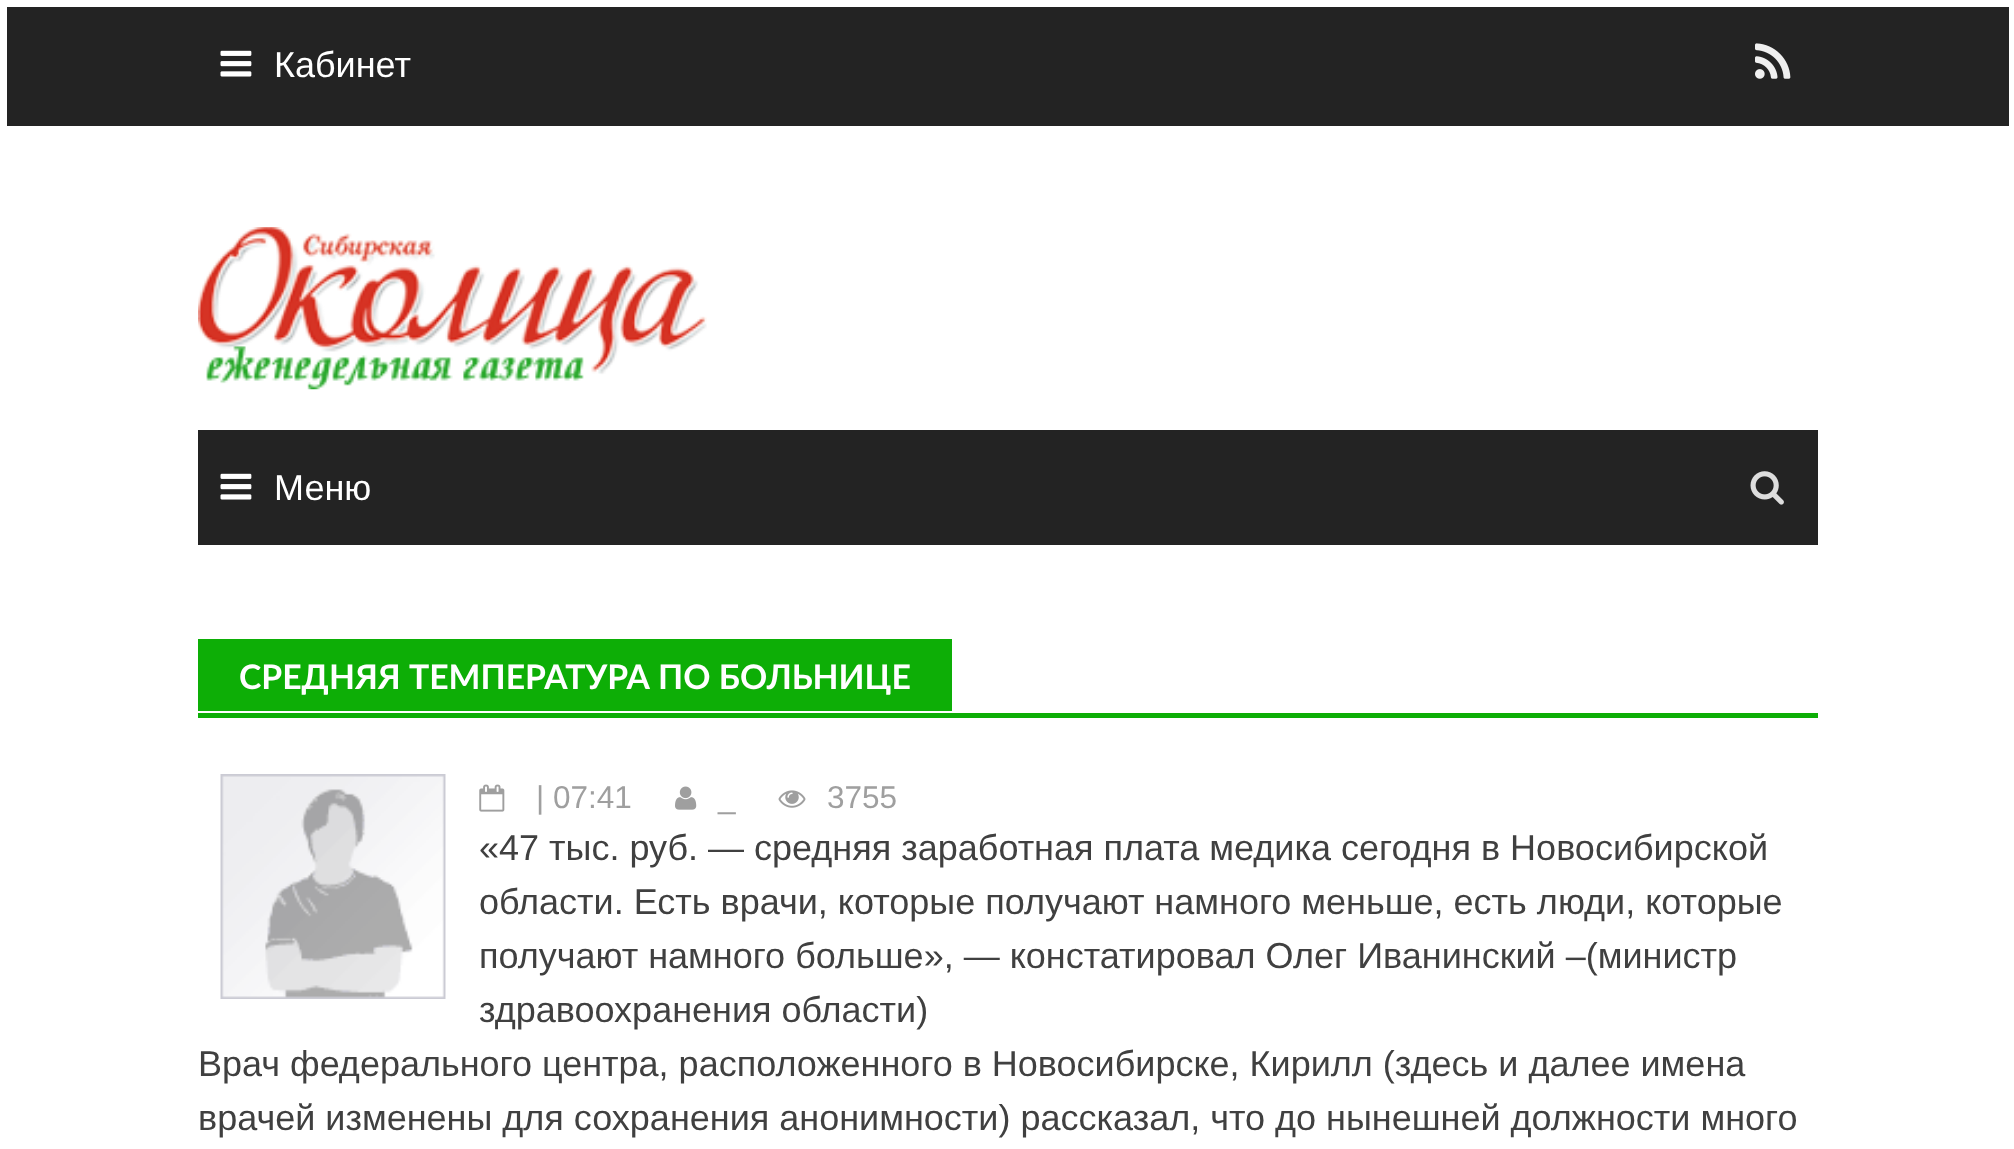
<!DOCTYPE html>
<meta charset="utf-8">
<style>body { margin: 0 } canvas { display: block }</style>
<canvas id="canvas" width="2014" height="1149"></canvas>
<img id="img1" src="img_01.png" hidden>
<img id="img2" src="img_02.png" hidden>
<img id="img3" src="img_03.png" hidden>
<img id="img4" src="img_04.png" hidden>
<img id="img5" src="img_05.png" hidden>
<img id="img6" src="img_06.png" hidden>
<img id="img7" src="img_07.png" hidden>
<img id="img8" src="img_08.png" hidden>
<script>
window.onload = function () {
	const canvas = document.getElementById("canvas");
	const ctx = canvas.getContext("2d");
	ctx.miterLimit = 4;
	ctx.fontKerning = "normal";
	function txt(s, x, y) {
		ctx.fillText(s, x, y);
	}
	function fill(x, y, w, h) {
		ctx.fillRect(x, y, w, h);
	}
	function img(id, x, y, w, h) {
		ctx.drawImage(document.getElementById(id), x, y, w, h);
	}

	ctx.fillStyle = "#FFFFFF";
	fill(0, 0, 2014, 1149);
	ctx.fillStyle = "#232323";
	fill(7, 7, 2002, 119);
	img("img1", 220, 50, 32, 27);
	img("img2", 1755, 43, 36, 36);
	img("img3", 198, 227, 509, 163);
	fill(198, 430, 1620, 115);
	img("img1", 220, 473, 32, 27);
	img("img4", 1750, 471, 34, 34);
	ctx.fillStyle = "#0DAE06";
	fill(198, 713, 1620, 5);
	fill(198, 639, 754, 72);
	img("img5", 220, 774, 226, 225);
	img("img6", 479, 784, 26, 28);
	img("img7", 778, 790, 28, 18);
	img("img8", 675, 786, 22, 24);
	ctx.font = "36px Liberation Sans";
	ctx.fillStyle = "#FFFFFF";
	txt("Кабинет", 274, 77);
	txt("Меню", 274, 500);
	ctx.font = "bold 33.75px Lato";
	txt("СРЕДНЯЯ ТЕМПЕРАТУРА ПО БОЛЬНИЦЕ", 239, 689);
	ctx.font = "31.5px Liberation Sans";
	ctx.fillStyle = "#9F9F9F";
	txt("| 07:41", 536, 808);
	txt("3755", 827, 808);
	txt("_", 718, 808);
	ctx.font = "36px Liberation Sans";
	ctx.fillStyle = "#404040";
	txt("«47 тыс. руб. — средняя заработная плата медика сегодня в Новосибирской", 479, 860);
	txt("области. Есть врачи, которые получают намного меньше, есть люди, которые", 479, 914);
	txt("получают намного больше», — констатировал Олег Иванинский –(министр", 479, 968);
	txt("здравоохранения области)", 479, 1022);
	txt("Врач федерального центра, расположенного в Новосибирске, Кирилл (здесь и далее имена", 198, 1076);
	txt("врачей изменены для сохранения анонимности) рассказал, что до нынешней должности много", 198, 1130);
};
</script>
